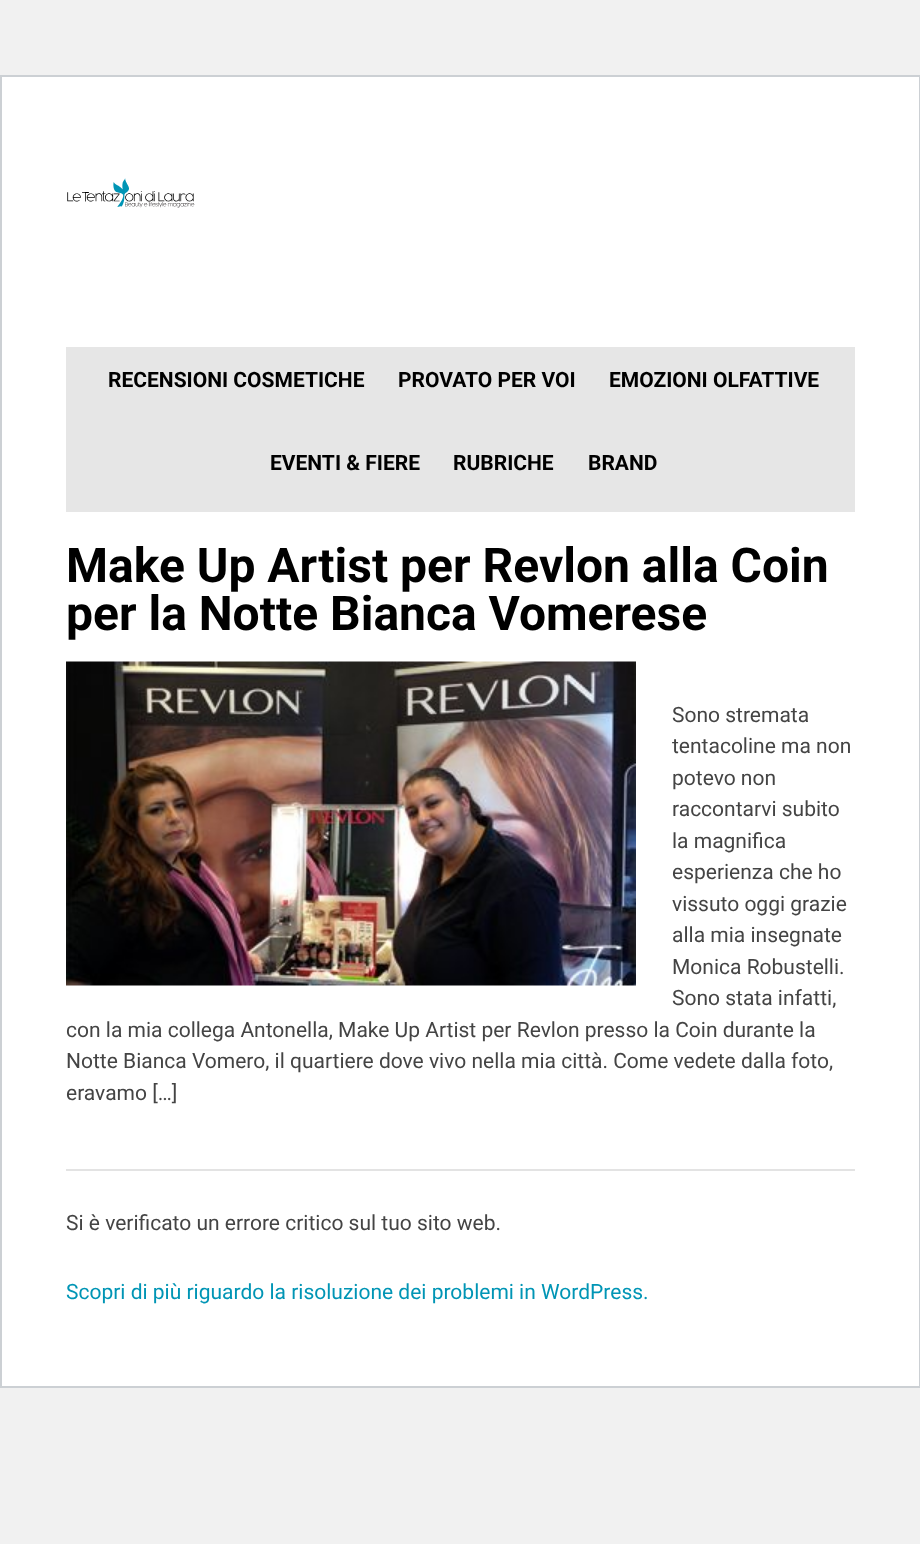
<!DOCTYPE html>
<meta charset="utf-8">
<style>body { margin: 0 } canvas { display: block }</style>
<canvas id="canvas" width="920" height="1544"></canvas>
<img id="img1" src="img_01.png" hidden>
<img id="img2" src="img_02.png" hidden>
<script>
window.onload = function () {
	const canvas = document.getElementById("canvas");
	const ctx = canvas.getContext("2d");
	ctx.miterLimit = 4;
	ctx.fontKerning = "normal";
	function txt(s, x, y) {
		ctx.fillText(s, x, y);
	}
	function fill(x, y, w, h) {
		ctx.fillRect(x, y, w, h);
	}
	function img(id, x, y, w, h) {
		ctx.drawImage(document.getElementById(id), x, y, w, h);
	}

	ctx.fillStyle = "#F1F1F1";
	fill(0, 0, 920, 1544);
	ctx.fillStyle = "#FFFFFF";
	ctx.beginPath();
	ctx.rect(1, 76, 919, 1311);
	ctx.fill();
	ctx.strokeStyle = "#CCD0D4";
	ctx.lineWidth = 2;
	ctx.stroke();
	img("img1", 67, 178, 128, 30);
	ctx.fillStyle = "#E6E6E6";
	fill(66, 347, 789, 165);
	ctx.fillStyle = "#E3E3E3";
	fill(66, 1169, 789, 2);
	img("img2", 66, 661, 570, 325);
	ctx.font = "bold 21px Roboto";
	ctx.fillStyle = "#000000";
	txt("RECENSIONI COSMETICHE", 108, 387);
	txt("PROVATO PER VOI", 398, 387);
	txt("EMOZIONI OLFATTIVE", 609, 387);
	txt("EVENTI & FIERE", 270, 470);
	txt("RUBRICHE", 453, 470);
	txt("BRAND", 588, 470);
	ctx.font = "bold 48px Roboto";
	txt("Make Up Artist per Revlon alla Coin", 66, 582);
	txt("per la Notte Bianca Vomerese", 66, 630);
	ctx.font = "21px Roboto";
	ctx.fillStyle = "#444444";
	txt("Sono stremata", 672, 722);
	txt("tentacoline ma non", 672, 753);
	txt("potevo non", 672, 785);
	txt("raccontarvi subito", 672, 816);
	txt("la magnifica", 672, 848);
	txt("esperienza che ho", 672, 879);
	txt("vissuto oggi grazie", 672, 911);
	txt("alla mia insegnate", 672, 942);
	txt("Monica Robustelli.", 672, 974);
	txt("Sono stata infatti,", 672, 1005);
	txt("con la mia collega Antonella, Make Up Artist per Revlon presso la Coin durante la", 66, 1037);
	txt("Notte Bianca Vomero, il quartiere dove vivo nella mia città. Come vedete dalla foto,", 66, 1068);
	txt("eravamo […]", 66, 1100);
	txt("Si è verificato un errore critico sul tuo sito web.", 66, 1230);
	ctx.fillStyle = "#0095B5";
	txt("Scopri di più riguardo la risoluzione dei problemi in WordPress.", 66, 1299);
};
</script>
